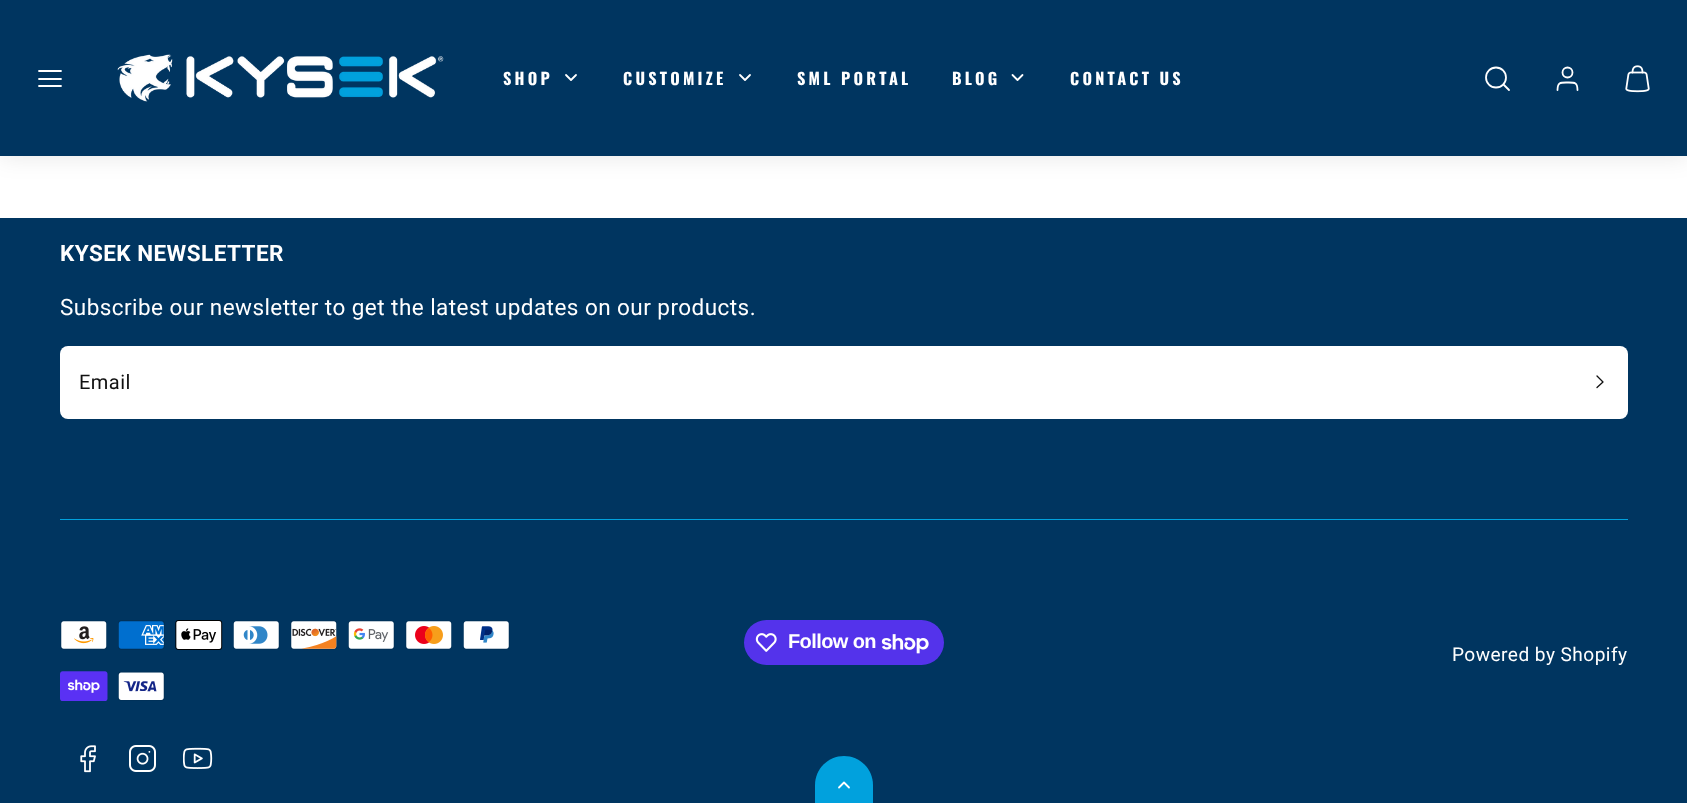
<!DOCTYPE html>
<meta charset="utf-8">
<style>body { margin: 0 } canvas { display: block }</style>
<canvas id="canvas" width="1687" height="803"></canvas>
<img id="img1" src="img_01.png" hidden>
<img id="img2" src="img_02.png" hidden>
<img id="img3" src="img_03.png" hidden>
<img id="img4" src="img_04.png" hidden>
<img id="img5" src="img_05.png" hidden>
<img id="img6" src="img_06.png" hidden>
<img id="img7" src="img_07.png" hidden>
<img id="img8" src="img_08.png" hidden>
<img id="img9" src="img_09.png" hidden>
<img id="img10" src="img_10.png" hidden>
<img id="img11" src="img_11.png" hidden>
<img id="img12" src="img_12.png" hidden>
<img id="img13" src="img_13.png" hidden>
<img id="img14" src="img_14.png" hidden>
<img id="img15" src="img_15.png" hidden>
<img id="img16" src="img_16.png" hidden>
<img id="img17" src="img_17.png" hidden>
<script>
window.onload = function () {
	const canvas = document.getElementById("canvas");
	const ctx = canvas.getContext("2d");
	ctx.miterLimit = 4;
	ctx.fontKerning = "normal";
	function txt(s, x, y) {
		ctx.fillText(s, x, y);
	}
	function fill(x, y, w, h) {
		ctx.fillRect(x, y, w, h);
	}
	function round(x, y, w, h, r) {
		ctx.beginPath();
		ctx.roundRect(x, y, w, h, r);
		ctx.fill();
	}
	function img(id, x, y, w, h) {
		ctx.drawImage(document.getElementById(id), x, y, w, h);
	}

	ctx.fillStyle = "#FFFFFF";
	fill(0, 0, 1687, 803);
	ctx.fillStyle = "rgba(0, 0, 0, 0.1)";
	ctx.filter = "blur(12.5px)";
	ctx.beginPath();
	ctx.rect(0, 0, 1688, 156);
	ctx.fill();
	ctx.filter = "none";
	ctx.fillStyle = "#003560";
	fill(0, 0, 1687, 156);
	ctx.beginPath();
	ctx.moveTo(39, 79);
	ctx.lineTo(61, 79);
	ctx.moveTo(39, 71);
	ctx.lineTo(61, 71);
	ctx.moveTo(39, 86);
	ctx.lineTo(61, 86);
	ctx.strokeStyle = "#FFFFFF";
	ctx.lineWidth = 1.8;
	ctx.lineCap = "round";
	ctx.lineJoin = "round";
	ctx.stroke();
	img("img1", 117, 54, 327, 48);
	ctx.beginPath();
	ctx.moveTo(566, 75);
	ctx.lineTo(571, 80);
	ctx.lineTo(576, 75);
	ctx.stroke();
	ctx.beginPath();
	ctx.moveTo(740, 75);
	ctx.lineTo(745, 80);
	ctx.lineTo(750, 75);
	ctx.stroke();
	ctx.beginPath();
	ctx.moveTo(1012.5, 75);
	ctx.lineTo(1017.5, 80);
	ctx.lineTo(1022.5, 75);
	ctx.stroke();
	ctx.beginPath();
	ctx.arc(1496, 77.5, 10, 0, Math.PI * 2);
	ctx.stroke();
	ctx.beginPath();
	ctx.moveTo(1509, 90);
	ctx.lineTo(1503.5, 84.5);
	ctx.stroke();
	ctx.beginPath();
	ctx.moveTo(1577.5, 90);
	ctx.bezierCurveTo(1577.5, 82, 1574.5, 82.5, 1567.5, 82.5);
	ctx.bezierCurveTo(1560.5, 82.5, 1557.5, 82, 1557.5, 90);
	ctx.stroke();
	ctx.beginPath();
	ctx.arc(1567.5, 72.5, 5, 0, Math.PI * 2);
	ctx.stroke();
	img("img2", 1625, 65, 25, 28);
	fill(0, 218, 1687, 585);
	ctx.fillStyle = "#FFFFFF";
	round(60, 346, 1568, 73, 8);
	ctx.beginPath();
	ctx.moveTo(1597, 387.5);
	ctx.lineTo(1603, 382);
	ctx.lineTo(1597, 376);
	ctx.strokeStyle = "#111111";
	ctx.lineWidth = 1.3;
	ctx.stroke();
	ctx.fillStyle = "#01A1DD";
	fill(60, 519, 1568, 1);
	img("img3", 60, 620, 47, 30);
	img("img4", 118, 620, 47, 30);
	img("img5", 175, 620, 48, 30);
	img("img6", 233, 620, 47, 30);
	img("img7", 290, 620, 47, 30);
	img("img8", 348, 620, 47, 30);
	img("img9", 405, 620, 47, 30);
	img("img10", 463, 620, 47, 30);
	img("img11", 60, 671, 48, 30);
	img("img12", 118, 671, 47, 30);
	img("img13", 80, 745, 16, 28);
	img("img14", 129, 745, 27, 27);
	img("img15", 183, 747, 30, 22);
	ctx.fillStyle = "#5433EB";
	round(744, 620, 200, 45, 22.5);
	img("img16", 755, 633, 22, 19);
	img("img17", 881, 634, 48, 20);
	ctx.fillStyle = "#01A1DD";
	ctx.beginPath();
	ctx.moveTo(844, 756);
	ctx.bezierCurveTo(860, 756, 873, 769, 873, 785);
	ctx.lineTo(873, 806);
	ctx.lineTo(815, 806);
	ctx.lineTo(815, 785);
	ctx.bezierCurveTo(815, 769, 828, 756, 844, 756);
	ctx.closePath();
	ctx.fill();
	ctx.beginPath();
	ctx.moveTo(849, 787.5);
	ctx.lineTo(844, 782.5);
	ctx.lineTo(839, 787.5);
	ctx.strokeStyle = "#FFFFFF";
	ctx.lineWidth = 1.8;
	ctx.stroke();
	ctx.letterSpacing = "3.25px";
	ctx.font = "bold 16.25px Oswald";
	ctx.fillStyle = "#FFFFFF";
	txt("SHOP", 503, 85);
	txt("CUSTOMIZE", 623, 85);
	txt("SML PORTAL", 797, 85);
	txt("BLOG", 952, 85);
	txt("CONTACT US", 1070, 85);
	ctx.letterSpacing = "0.45px";
	ctx.font = "bold 22.5px Roboto";
	txt("KYSEK NEWSLETTER", 60, 261);
	ctx.font = "22.5px Roboto";
	txt("Subscribe our newsletter to get the latest updates on our products.", 60, 315);
	ctx.font = "20px Roboto";
	ctx.fillStyle = "#111111";
	txt("Email", 79, 389);
	ctx.letterSpacing = "-0.6px";
	ctx.font = "bold 20px Liberation Sans";
	ctx.fillStyle = "#FFFFFF";
	txt("Follow on", 788, 648);
	ctx.letterSpacing = "0.45px";
	ctx.font = "19.1px Roboto";
	txt("Powered by Shopify", 1452, 661);
};
</script>
